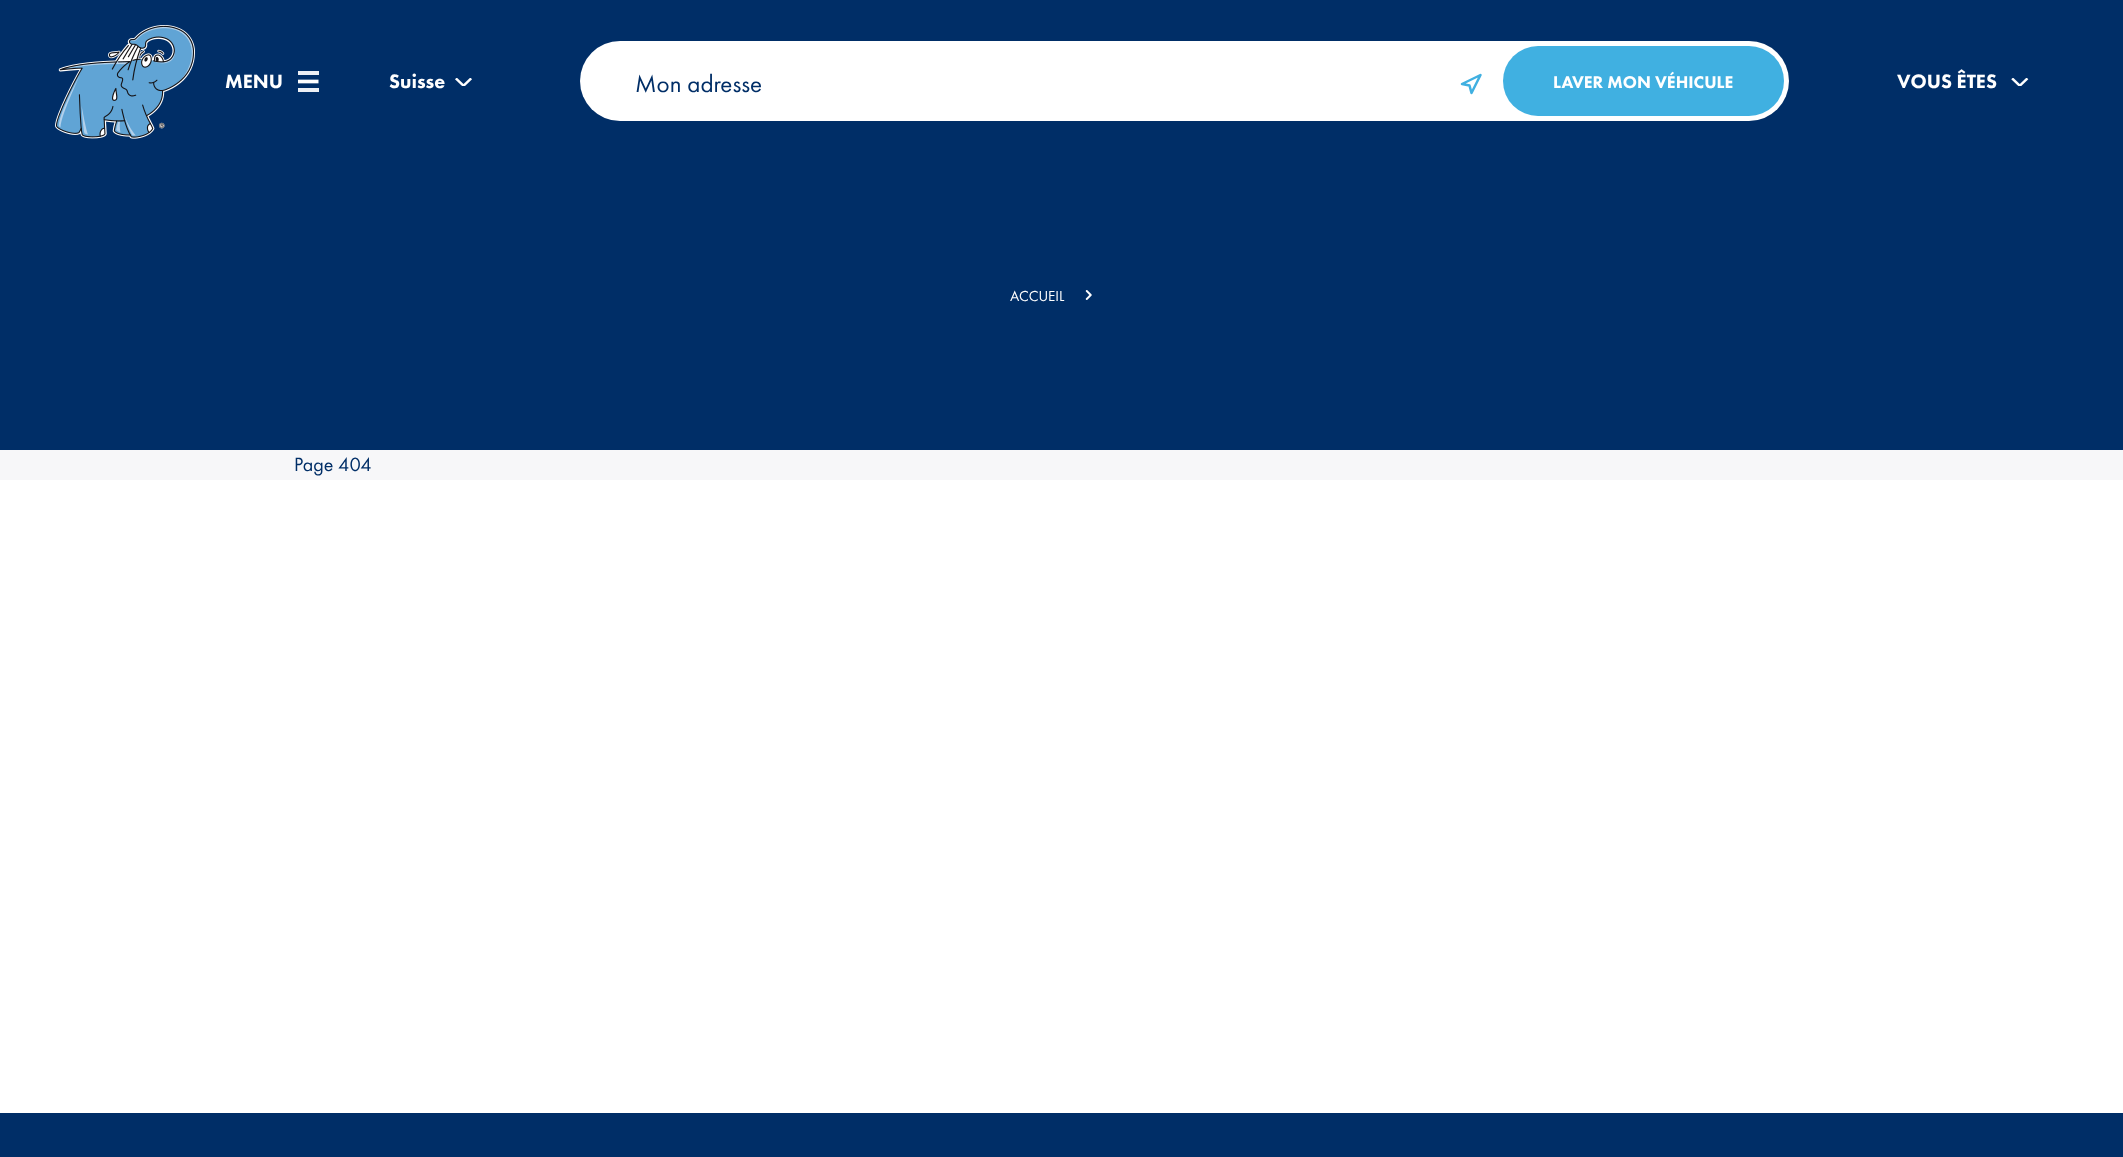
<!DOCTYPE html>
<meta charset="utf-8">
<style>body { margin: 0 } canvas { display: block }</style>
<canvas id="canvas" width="2123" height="1157"></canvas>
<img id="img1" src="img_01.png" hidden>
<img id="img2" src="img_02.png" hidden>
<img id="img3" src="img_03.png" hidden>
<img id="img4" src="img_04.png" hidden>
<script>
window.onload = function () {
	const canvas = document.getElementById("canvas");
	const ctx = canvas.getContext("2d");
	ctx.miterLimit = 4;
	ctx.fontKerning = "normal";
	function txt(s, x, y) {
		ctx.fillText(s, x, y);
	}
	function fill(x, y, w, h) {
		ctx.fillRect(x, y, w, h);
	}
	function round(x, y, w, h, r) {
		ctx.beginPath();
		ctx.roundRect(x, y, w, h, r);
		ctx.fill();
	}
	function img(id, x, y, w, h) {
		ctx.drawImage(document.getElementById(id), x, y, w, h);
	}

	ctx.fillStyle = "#002E67";
	fill(0, 0, 2123, 1157);
	img("img1", 55, 25, 140, 114);
	ctx.fillStyle = "#ECEFF4";
	fill(298, 71, 21, 4);
	ctx.save();
	ctx.beginPath();
	ctx.rect(298, 71, 21, 22);
	ctx.clip();
	ctx.beginPath();
	ctx.moveTo(297.5, 81.5);
	ctx.lineTo(318.5, 81.5);
	ctx.strokeStyle = "#FFFFFF";
	ctx.lineWidth = 3.7;
	ctx.stroke();
	ctx.restore();
	fill(298, 88, 21, 4);
	img("img2", 455, 78, 17, 8);
	ctx.fillStyle = "#FFFFFF";
	round(580, 41, 1209, 80, 40);
	ctx.beginPath();
	ctx.moveTo(1462, 84);
	ctx.lineTo(1480.5, 75);
	ctx.lineTo(1471.5, 93);
	ctx.lineTo(1469.5, 85.5);
	ctx.closePath();
	ctx.strokeStyle = "#40B0E1";
	ctx.lineWidth = 2.5;
	ctx.lineCap = "round";
	ctx.lineJoin = "round";
	ctx.stroke();
	ctx.fillStyle = "#40B0E1";
	round(1503, 46, 281, 70, 35);
	img("img3", 2011, 78, 18, 8);
	img("img4", 1085, 290, 7, 10);
	ctx.fillStyle = "#F7F7F9";
	fill(0, 450, 2123, 30);
	ctx.fillStyle = "#FFFFFF";
	fill(0, 480, 2123, 633);
	ctx.font = "900 20px Futura PT";
	txt("MENU", 225, 88);
	txt("Suisse", 389, 88);
	ctx.font = "25px Futura PT";
	ctx.fillStyle = "#002E67";
	txt("Mon adresse", 635, 92);
	ctx.font = "900 17.5px Futura PT";
	ctx.fillStyle = "#FFFFFF";
	txt("LAVER MON VÉHICULE", 1553, 88);
	ctx.font = "900 20px Futura PT";
	txt("VOUS ÊTES", 1897, 88);
	ctx.font = "15px Futura PT";
	txt("ACCUEIL", 1010, 301);
	ctx.font = "20px Futura PT";
	ctx.fillStyle = "#002E67";
	txt("Page 404", 294, 471);
};
</script>
